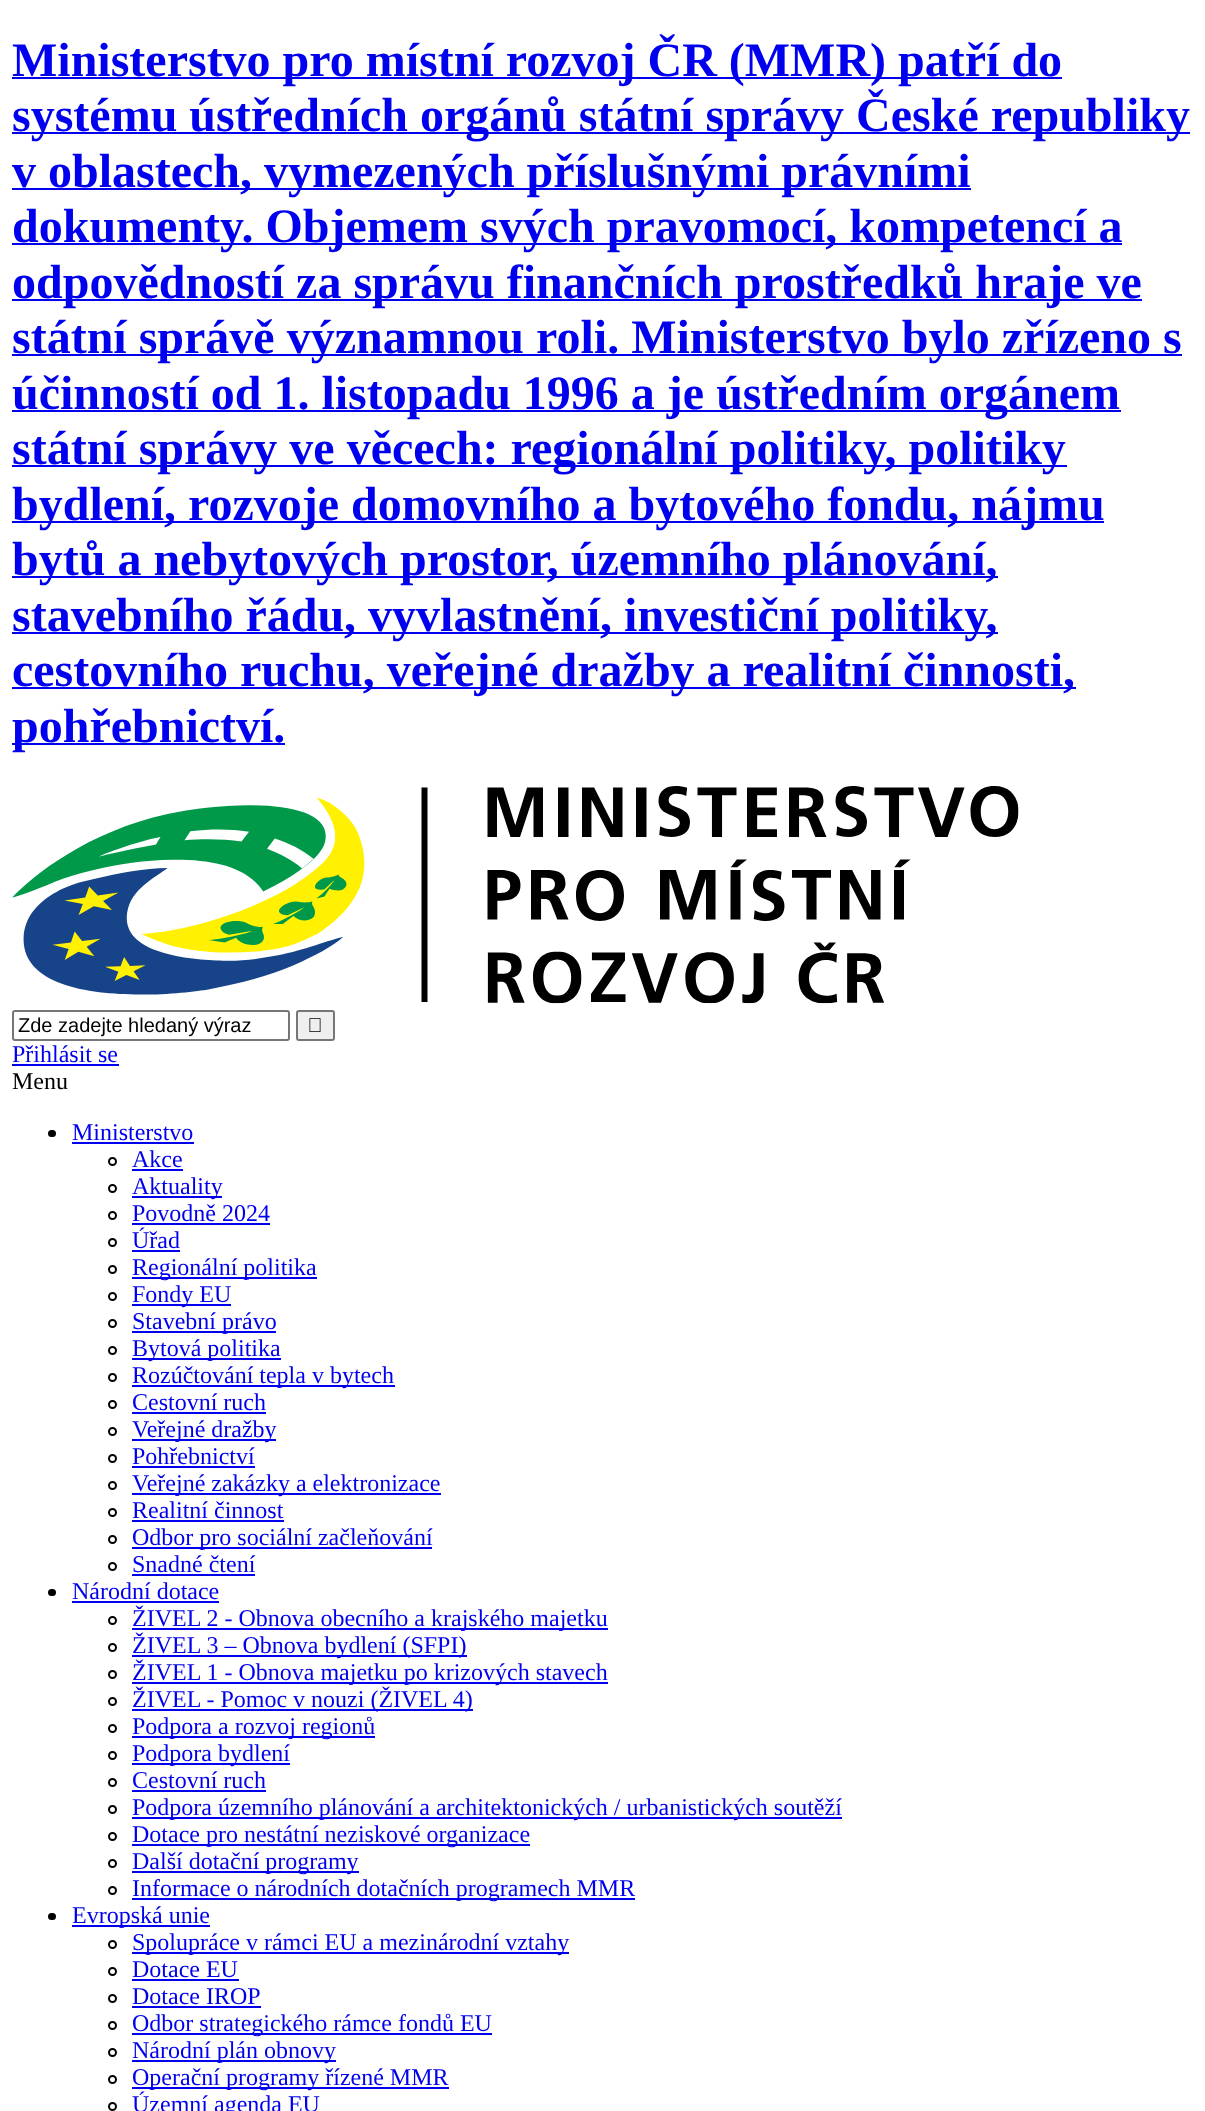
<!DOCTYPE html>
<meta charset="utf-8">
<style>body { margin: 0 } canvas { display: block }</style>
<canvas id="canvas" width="1205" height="2111"></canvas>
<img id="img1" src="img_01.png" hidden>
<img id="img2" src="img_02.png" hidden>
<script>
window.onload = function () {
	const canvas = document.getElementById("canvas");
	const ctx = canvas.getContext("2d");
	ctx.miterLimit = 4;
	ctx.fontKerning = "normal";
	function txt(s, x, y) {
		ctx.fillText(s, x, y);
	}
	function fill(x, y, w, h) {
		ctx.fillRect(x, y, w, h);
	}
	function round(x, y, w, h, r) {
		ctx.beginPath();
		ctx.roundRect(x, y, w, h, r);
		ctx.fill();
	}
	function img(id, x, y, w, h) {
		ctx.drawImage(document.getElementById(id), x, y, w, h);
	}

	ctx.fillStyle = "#FFFFFF";
	fill(0, 0, 1205, 2111);
	ctx.fillStyle = "#0000EE";
	fill(12, 77, 1050, 2);
	fill(12, 132, 1178, 2);
	fill(12, 188, 959, 2);
	fill(12, 243, 1110, 2);
	fill(12, 299, 1130, 2);
	fill(12, 354, 1170, 2);
	fill(12, 410, 1109, 2);
	fill(12, 465, 1055, 2);
	fill(12, 521, 1092, 2);
	fill(12, 576, 986, 2);
	fill(12, 632, 986, 2);
	fill(12, 687, 1064, 2);
	fill(12, 743, 273, 2);
	img("img1", 12, 786, 1007, 218);
	ctx.beginPath();
	ctx.roundRect(13, 1011, 276, 29, 2);
	ctx.strokeStyle = "#767676";
	ctx.lineWidth = 2;
	ctx.stroke();
	ctx.fillStyle = "#EFEFEF";
	ctx.beginPath();
	ctx.roundRect(297, 1011, 37, 29, 2);
	ctx.fill();
	ctx.stroke();
	img("img2", 309, 1018, 12, 14);
	ctx.fillStyle = "#0000EE";
	fill(12, 1064, 107, 2);
	ctx.fillStyle = "#000000";
	round(48, 1130, 8, 7, 3.5);
	ctx.fillStyle = "#0000EE";
	fill(72, 1142, 122, 2);
	ctx.beginPath();
	ctx.arc(112.5, 1161.5, 3.5, 0, Math.PI * 2);
	ctx.strokeStyle = "#000000";
	ctx.stroke();
	fill(132, 1169, 51, 2);
	ctx.beginPath();
	ctx.arc(112.5, 1188.5, 3.5, 0, Math.PI * 2);
	ctx.stroke();
	fill(132, 1196, 90, 2);
	ctx.beginPath();
	ctx.arc(112.5, 1215.5, 3.5, 0, Math.PI * 2);
	ctx.stroke();
	fill(132, 1223, 138, 2);
	ctx.beginPath();
	ctx.arc(112.5, 1242.5, 3.5, 0, Math.PI * 2);
	ctx.stroke();
	fill(132, 1250, 48, 2);
	ctx.beginPath();
	ctx.arc(112.5, 1269.5, 3.5, 0, Math.PI * 2);
	ctx.stroke();
	fill(132, 1277, 185, 2);
	ctx.beginPath();
	ctx.arc(112.5, 1296.5, 3.5, 0, Math.PI * 2);
	ctx.stroke();
	fill(132, 1304, 99, 2);
	ctx.beginPath();
	ctx.arc(112.5, 1323.5, 3.5, 0, Math.PI * 2);
	ctx.stroke();
	fill(132, 1331, 144, 2);
	ctx.beginPath();
	ctx.arc(112.5, 1350.5, 3.5, 0, Math.PI * 2);
	ctx.stroke();
	fill(132, 1358, 149, 2);
	ctx.beginPath();
	ctx.arc(112.5, 1377.5, 3.5, 0, Math.PI * 2);
	ctx.stroke();
	fill(132, 1385, 263, 2);
	ctx.beginPath();
	ctx.arc(112.5, 1404.5, 3.5, 0, Math.PI * 2);
	ctx.stroke();
	fill(132, 1412, 134, 2);
	ctx.beginPath();
	ctx.arc(112.5, 1431.5, 3.5, 0, Math.PI * 2);
	ctx.stroke();
	fill(132, 1439, 144, 2);
	ctx.beginPath();
	ctx.arc(112.5, 1458.5, 3.5, 0, Math.PI * 2);
	ctx.stroke();
	fill(132, 1466, 123, 2);
	ctx.beginPath();
	ctx.arc(112.5, 1485.5, 3.5, 0, Math.PI * 2);
	ctx.stroke();
	fill(132, 1493, 309, 2);
	ctx.beginPath();
	ctx.arc(112.5, 1512.5, 3.5, 0, Math.PI * 2);
	ctx.stroke();
	fill(132, 1520, 152, 2);
	ctx.beginPath();
	ctx.arc(112.5, 1539.5, 3.5, 0, Math.PI * 2);
	ctx.stroke();
	fill(132, 1547, 300, 2);
	ctx.beginPath();
	ctx.arc(112.5, 1566.5, 3.5, 0, Math.PI * 2);
	ctx.stroke();
	fill(132, 1574, 123, 2);
	ctx.fillStyle = "#000000";
	round(48, 1589, 8, 7, 3.5);
	ctx.fillStyle = "#0000EE";
	fill(72, 1601, 147, 2);
	ctx.beginPath();
	ctx.arc(112.5, 1620.5, 3.5, 0, Math.PI * 2);
	ctx.stroke();
	fill(132, 1628, 476, 2);
	ctx.beginPath();
	ctx.arc(112.5, 1647.5, 3.5, 0, Math.PI * 2);
	ctx.stroke();
	fill(132, 1655, 335, 2);
	ctx.beginPath();
	ctx.arc(112.5, 1674.5, 3.5, 0, Math.PI * 2);
	ctx.stroke();
	fill(132, 1682, 476, 2);
	ctx.beginPath();
	ctx.arc(112.5, 1701.5, 3.5, 0, Math.PI * 2);
	ctx.stroke();
	fill(132, 1709, 341, 2);
	ctx.beginPath();
	ctx.arc(112.5, 1728.5, 3.5, 0, Math.PI * 2);
	ctx.stroke();
	fill(132, 1736, 243, 2);
	ctx.beginPath();
	ctx.arc(112.5, 1755.5, 3.5, 0, Math.PI * 2);
	ctx.stroke();
	fill(132, 1763, 158, 2);
	ctx.beginPath();
	ctx.arc(112.5, 1782.5, 3.5, 0, Math.PI * 2);
	ctx.stroke();
	fill(132, 1790, 134, 2);
	ctx.beginPath();
	ctx.arc(112.5, 1809.5, 3.5, 0, Math.PI * 2);
	ctx.stroke();
	fill(132, 1817, 710, 2);
	ctx.beginPath();
	ctx.arc(112.5, 1836.5, 3.5, 0, Math.PI * 2);
	ctx.stroke();
	fill(132, 1844, 398, 2);
	ctx.beginPath();
	ctx.arc(112.5, 1863.5, 3.5, 0, Math.PI * 2);
	ctx.stroke();
	fill(132, 1871, 227, 2);
	ctx.beginPath();
	ctx.arc(112.5, 1890.5, 3.5, 0, Math.PI * 2);
	ctx.stroke();
	fill(132, 1898, 503, 2);
	ctx.fillStyle = "#000000";
	round(48, 1913, 8, 7, 3.5);
	ctx.fillStyle = "#0000EE";
	fill(72, 1925, 138, 2);
	ctx.beginPath();
	ctx.arc(112.5, 1944.5, 3.5, 0, Math.PI * 2);
	ctx.stroke();
	fill(132, 1952, 437, 2);
	ctx.beginPath();
	ctx.arc(112.5, 1971.5, 3.5, 0, Math.PI * 2);
	ctx.stroke();
	fill(132, 1979, 107, 2);
	ctx.beginPath();
	ctx.arc(112.5, 1998.5, 3.5, 0, Math.PI * 2);
	ctx.stroke();
	fill(132, 2006, 129, 2);
	ctx.beginPath();
	ctx.arc(112.5, 2025.5, 3.5, 0, Math.PI * 2);
	ctx.stroke();
	fill(132, 2033, 360, 2);
	ctx.beginPath();
	ctx.arc(112.5, 2052.5, 3.5, 0, Math.PI * 2);
	ctx.stroke();
	fill(132, 2060, 204, 2);
	ctx.beginPath();
	ctx.arc(112.5, 2079.5, 3.5, 0, Math.PI * 2);
	ctx.stroke();
	fill(132, 2087, 317, 2);
	ctx.beginPath();
	ctx.arc(112.5, 2106.5, 3.5, 0, Math.PI * 2);
	ctx.stroke();
	ctx.font = "bold 48px Liberation Serif";
	txt("Ministerstvo pro místní rozvoj ČR (MMR) patří do", 12, 76);
	txt("systému ústředních orgánů státní správy České republiky", 12, 131);
	txt("v oblastech, vymezených příslušnými právními", 12, 187);
	txt("dokumenty. Objemem svých pravomocí, kompetencí a", 12, 242);
	txt("odpovědností za správu finančních prostředků hraje ve", 12, 298);
	txt("státní správě významnou roli. Ministerstvo bylo zřízeno s", 12, 353);
	txt("účinností od 1. listopadu 1996 a je ústředním orgánem", 12, 409);
	txt("státní správy ve věcech: regionální politiky, politiky", 12, 464);
	txt("bydlení, rozvoje domovního a bytového fondu, nájmu", 12, 520);
	txt("bytů a nebytových prostor, územního plánování,", 12, 575);
	txt("stavebního řádu, vyvlastnění, investiční politiky,", 12, 631);
	txt("cestovního ruchu, veřejné dražby a realitní činnosti,", 12, 686);
	txt("pohřebnictví.", 12, 742);
	ctx.font = "20px Liberation Sans";
	ctx.fillStyle = "#000000";
	txt("Zde zadejte hledaný výraz", 18, 1032);
	ctx.font = "24px Liberation Serif";
	ctx.fillStyle = "#0000EE";
	txt("Přihlásit se", 12, 1062);
	ctx.fillStyle = "#000000";
	txt("Menu", 12, 1089);
	ctx.fillStyle = "#0000EE";
	txt("Ministerstvo", 72, 1140);
	txt("Akce", 132, 1167);
	txt("Aktuality", 132, 1194);
	txt("Povodně 2024", 132, 1221);
	txt("Úřad", 132, 1248);
	txt("Regionální politika", 132, 1275);
	txt("Fondy EU", 132, 1302);
	txt("Stavební právo", 132, 1329);
	txt("Bytová politika", 132, 1356);
	txt("Rozúčtování tepla v bytech", 132, 1383);
	txt("Cestovní ruch", 132, 1410);
	txt("Veřejné dražby", 132, 1437);
	txt("Pohřebnictví", 132, 1464);
	txt("Veřejné zakázky a elektronizace", 132, 1491);
	txt("Realitní činnost", 132, 1518);
	txt("Odbor pro sociální začleňování", 132, 1545);
	txt("Snadné čtení", 132, 1572);
	txt("Národní dotace", 72, 1599);
	txt("ŽIVEL 2 - Obnova obecního a krajského majetku", 132, 1626);
	txt("ŽIVEL 3 – Obnova bydlení (SFPI)", 132, 1653);
	txt("ŽIVEL 1 - Obnova majetku po krizových stavech", 132, 1680);
	txt("ŽIVEL - Pomoc v nouzi (ŽIVEL 4)", 132, 1707);
	txt("Podpora a rozvoj regionů", 132, 1734);
	txt("Podpora bydlení", 132, 1761);
	txt("Cestovní ruch", 132, 1788);
	txt("Podpora územního plánování a architektonických / urbanistických soutěží", 132, 1815);
	txt("Dotace pro nestátní neziskové organizace", 132, 1842);
	txt("Další dotační programy", 132, 1869);
	txt("Informace o národních dotačních programech MMR", 132, 1896);
	txt("Evropská unie", 72, 1923);
	txt("Spolupráce v rámci EU a mezinárodní vztahy", 132, 1950);
	txt("Dotace EU", 132, 1977);
	txt("Dotace IROP", 132, 2004);
	txt("Odbor strategického rámce fondů EU", 132, 2031);
	txt("Národní plán obnovy", 132, 2058);
	txt("Operační programy řízené MMR", 132, 2085);
	txt("Územní agenda EU", 132, 2112);
};
</script>
